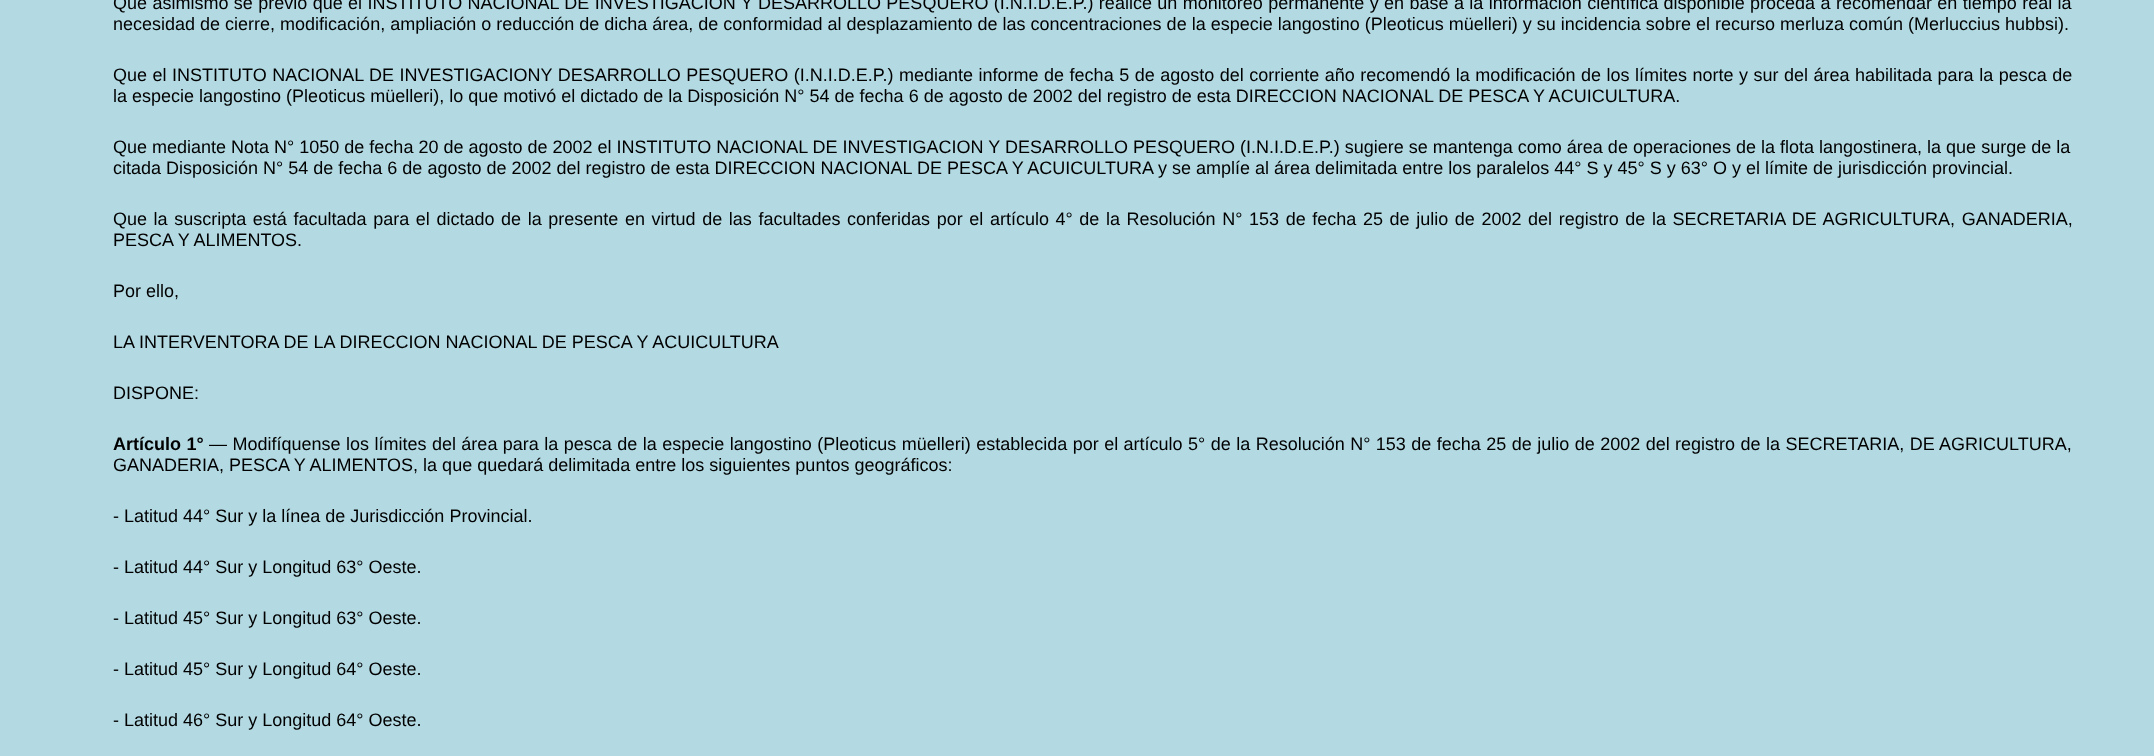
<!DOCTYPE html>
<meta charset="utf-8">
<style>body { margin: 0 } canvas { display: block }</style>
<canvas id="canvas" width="2154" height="756"></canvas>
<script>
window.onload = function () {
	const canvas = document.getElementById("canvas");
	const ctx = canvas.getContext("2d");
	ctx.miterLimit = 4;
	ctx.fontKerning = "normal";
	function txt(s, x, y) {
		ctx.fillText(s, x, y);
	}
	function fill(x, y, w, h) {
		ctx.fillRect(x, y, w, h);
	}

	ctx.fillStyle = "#B3D9E2";
	fill(0, 0, 2154, 756);
	ctx.wordSpacing = "0.4px";
	ctx.font = "18px Liberation Sans";
	ctx.fillStyle = "#000000";
	txt("Que asimismo se previó que el INSTITUTO NACIONAL DE INVESTIGACION Y DESARROLLO PESQUERO (I.N.I.D.E.P.) realice un monitoreo permanente y en base a la información científica disponible proceda a recomendar en tiempo real la", 113, 9);
	ctx.wordSpacing = "0px";
	txt("necesidad de cierre, modificación, ampliación o reducción de dicha área, de conformidad al desplazamiento de las concentraciones de la especie langostino (Pleoticus müelleri) y su incidencia sobre el recurso merluza común (Merluccius hubbsi).", 113, 30);
	ctx.wordSpacing = "0.5px";
	txt("Que el INSTITUTO NACIONAL DE INVESTIGACIONY DESARROLLO PESQUERO (I.N.I.D.E.P.) mediante informe de fecha 5 de agosto del corriente año recomendó la modificación de los límites norte y sur del área habilitada para la pesca de", 113, 81);
	ctx.wordSpacing = "0px";
	txt("la especie langostino (Pleoticus müelleri), lo que motivó el dictado de la Disposición N° 54 de fecha 6 de agosto de 2002 del registro de esta DIRECCION NACIONAL DE PESCA Y ACUICULTURA.", 113, 102);
	txt("Que mediante Nota N° 1050 de fecha 20 de agosto de 2002 el INSTITUTO NACIONAL DE INVESTIGACION Y DESARROLLO PESQUERO (I.N.I.D.E.P.) sugiere se mantenga como área de operaciones de la flota langostinera, la que surge de la", 113, 153);
	txt("citada Disposición N° 54 de fecha 6 de agosto de 2002 del registro de esta DIRECCION NACIONAL DE PESCA Y ACUICULTURA y se amplíe al área delimitada entre los paralelos 44° S y 45° S y 63° O y el límite de jurisdicción provincial.", 113, 174);
	ctx.wordSpacing = "1.6px";
	txt("Que la suscripta está facultada para el dictado de la presente en virtud de las facultades conferidas por el artículo 4° de la Resolución N° 153 de fecha 25 de julio de 2002 del registro de la SECRETARIA DE AGRICULTURA, GANADERIA,", 113, 225);
	ctx.wordSpacing = "0px";
	txt("PESCA Y ALIMENTOS.", 113, 246);
	txt("Por ello,", 113, 297);
	txt("LA INTERVENTORA DE LA DIRECCION NACIONAL DE PESCA Y ACUICULTURA", 113, 348);
	txt("DISPONE:", 113, 399);
	ctx.wordSpacing = "0.45px";
	ctx.font = "bold 18px Liberation Sans";
	txt("Artículo 1°", 113, 450);
	ctx.font = "18px Liberation Sans";
	txt("— Modifíquense los límites del área para la pesca de la especie langostino (Pleoticus müelleri) establecida por el artículo 5° de la Resolución N° 153 de fecha 25 de julio de 2002 del registro de la SECRETARIA, DE AGRICULTURA,", 209, 450);
	ctx.wordSpacing = "0px";
	txt("GANADERIA, PESCA Y ALIMENTOS, la que quedará delimitada entre los siguientes puntos geográficos:", 113, 471);
	txt("- Latitud 44° Sur y la línea de Jurisdicción Provincial.", 113, 522);
	txt("- Latitud 44° Sur y Longitud 63° Oeste.", 113, 573);
	txt("- Latitud 45° Sur y Longitud 63° Oeste.", 113, 624);
	txt("- Latitud 45° Sur y Longitud 64° Oeste.", 113, 675);
	txt("- Latitud 46° Sur y Longitud 64° Oeste.", 113, 726);
};
</script>
